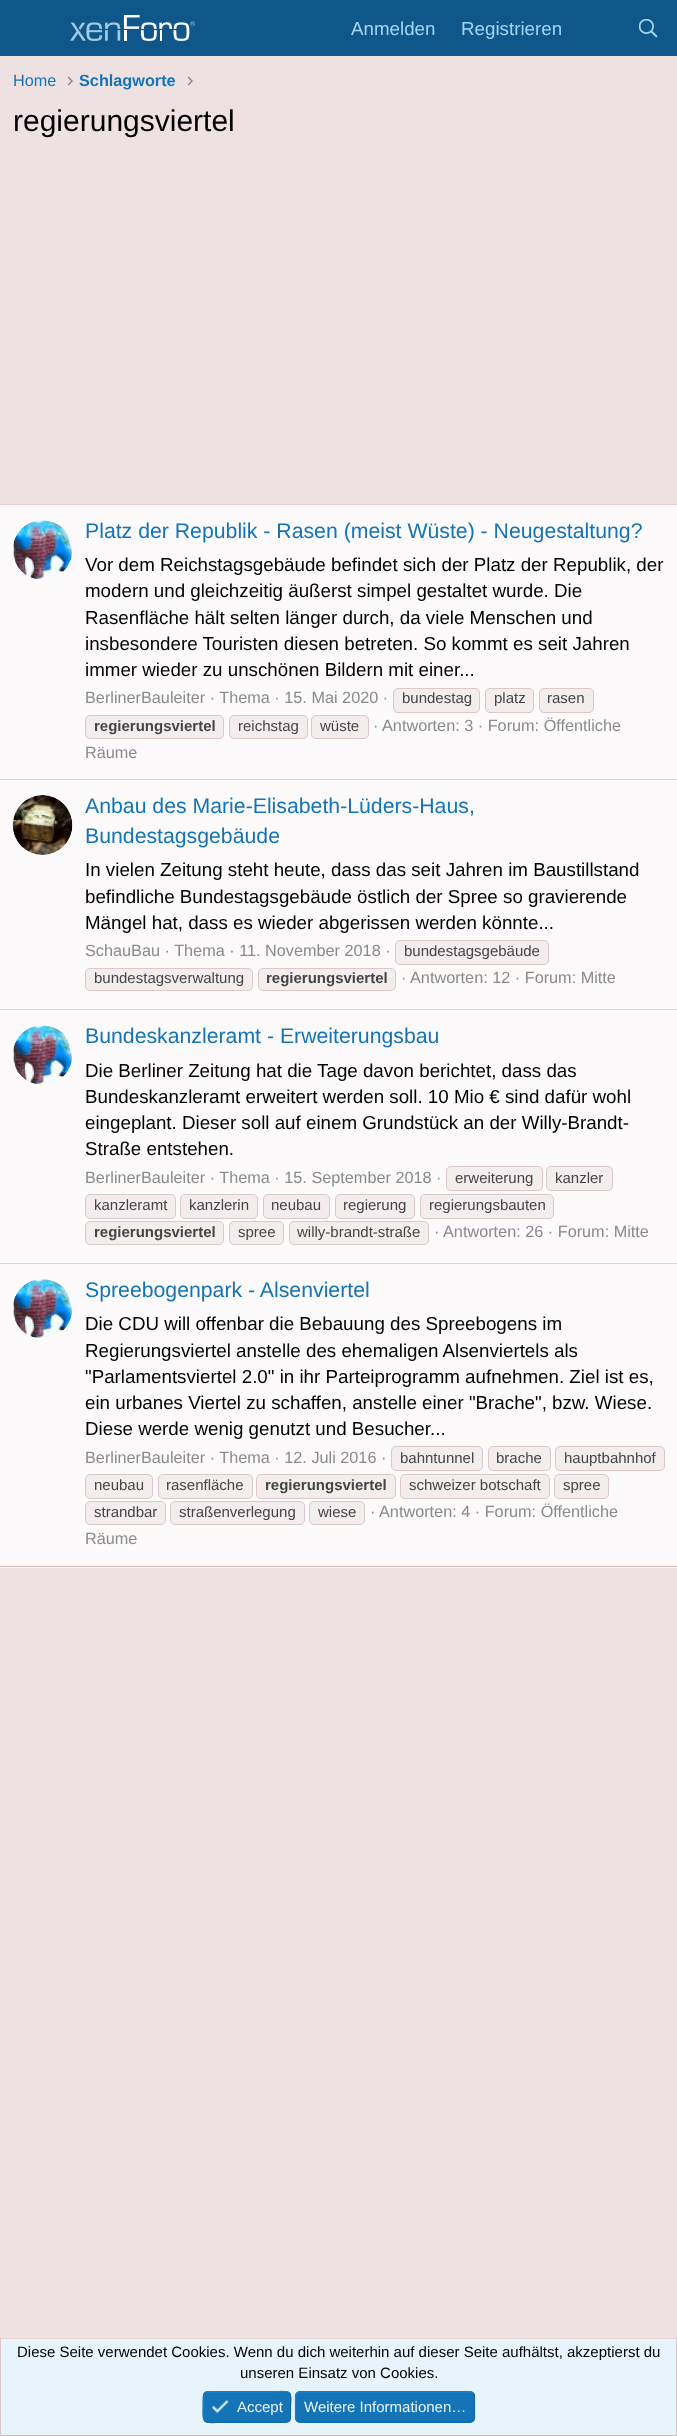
<!DOCTYPE html>
<meta charset="utf-8">
<style>body { margin: 0 } canvas { display: block }</style>
<canvas id="canvas" width="677" height="2436"></canvas>
<img id="img1" src="img_01.png" hidden>
<img id="img2" src="img_02.png" hidden>
<img id="img3" src="img_03.png" hidden>
<img id="img4" src="img_04.png" hidden>
<img id="img5" src="img_05.png" hidden>
<img id="img6" src="img_06.png" hidden>
<img id="img7" src="img_07.png" hidden>
<img id="img8" src="img_08.png" hidden>
<script>
window.onload = function () {
	const canvas = document.getElementById("canvas");
	const ctx = canvas.getContext("2d");
	ctx.miterLimit = 4;
	ctx.fontKerning = "normal";
	function txt(s, x, y) {
		ctx.fillText(s, x, y);
	}
	function fill(x, y, w, h) {
		ctx.fillRect(x, y, w, h);
	}
	function round(x, y, w, h, r) {
		ctx.beginPath();
		ctx.roundRect(x, y, w, h, r);
		ctx.fill();
	}
	function img(id, x, y, w, h) {
		ctx.drawImage(document.getElementById(id), x, y, w, h);
	}

	ctx.fillStyle = "#EDE1E1";
	fill(0, 0, 677, 2436);
	ctx.fillStyle = "#0F578A";
	fill(0, 0, 677, 56);
	img("img1", 70, 15, 125, 26);
	img("img2", 639, 19, 19, 19);
	img("img3", 68, 76, 5, 10);
	img("img3", 188, 76, 5, 10);
	ctx.fillStyle = "#FCFAFA";
	fill(0, 505, 677, 1063);
	ctx.fillStyle = "#E5D4D4";
	fill(0, 504, 677, 1);
	ctx.fillStyle = "#D6BABA";
	fill(0, 1566, 677, 1);
	img("img4", 13, 520, 60, 60);
	ctx.fillStyle = "#F4EDED";
	ctx.beginPath();
	ctx.roundRect(393.5, 688.5, 86, 24, 4.5);
	ctx.fill();
	ctx.strokeStyle = "#DDC7C7";
	ctx.stroke();
	ctx.beginPath();
	ctx.roundRect(485.5, 688.5, 48, 24, 4.5);
	ctx.fill();
	ctx.stroke();
	ctx.beginPath();
	ctx.roundRect(539.5, 688.5, 54, 24, 4.5);
	ctx.fill();
	ctx.stroke();
	ctx.beginPath();
	ctx.roundRect(85.5, 715.5, 138, 23, 4.5);
	ctx.fill();
	ctx.stroke();
	ctx.beginPath();
	ctx.roundRect(229.5, 715.5, 78, 23, 4.5);
	ctx.fill();
	ctx.stroke();
	ctx.beginPath();
	ctx.roundRect(311.5, 715.5, 57, 23, 4.5);
	ctx.fill();
	ctx.stroke();
	ctx.fillStyle = "#E5D4D4";
	fill(0, 779, 677, 1);
	img("img5", 12, 795, 61, 60);
	ctx.fillStyle = "#F4EDED";
	ctx.beginPath();
	ctx.roundRect(395.5, 940.5, 153, 24, 4.5);
	ctx.fill();
	ctx.stroke();
	ctx.beginPath();
	ctx.roundRect(85.5, 968.5, 167, 22, 4.5);
	ctx.fill();
	ctx.stroke();
	ctx.beginPath();
	ctx.roundRect(258.5, 968.5, 137, 22, 4.5);
	ctx.fill();
	ctx.stroke();
	ctx.fillStyle = "#E5D4D4";
	fill(0, 1009, 677, 1);
	img("img6", 13, 1025, 60, 60);
	ctx.fillStyle = "#F4EDED";
	ctx.beginPath();
	ctx.roundRect(446.5, 1166.5, 96, 24, 4.5);
	ctx.fill();
	ctx.stroke();
	ctx.beginPath();
	ctx.roundRect(546.5, 1166.5, 66, 24, 4.5);
	ctx.fill();
	ctx.stroke();
	ctx.beginPath();
	ctx.roundRect(85.5, 1194.5, 90, 24, 4.5);
	ctx.fill();
	ctx.stroke();
	ctx.beginPath();
	ctx.roundRect(180.5, 1194.5, 77, 24, 4.5);
	ctx.fill();
	ctx.stroke();
	ctx.beginPath();
	ctx.roundRect(263.5, 1194.5, 66, 24, 4.5);
	ctx.fill();
	ctx.stroke();
	ctx.beginPath();
	ctx.roundRect(335.5, 1194.5, 79, 24, 4.5);
	ctx.fill();
	ctx.stroke();
	ctx.beginPath();
	ctx.roundRect(420.5, 1194.5, 133, 24, 4.5);
	ctx.fill();
	ctx.stroke();
	ctx.beginPath();
	ctx.roundRect(85.5, 1221.5, 138, 23, 4.5);
	ctx.fill();
	ctx.stroke();
	ctx.beginPath();
	ctx.roundRect(229.5, 1221.5, 54, 23, 4.5);
	ctx.fill();
	ctx.stroke();
	ctx.beginPath();
	ctx.roundRect(289.5, 1221.5, 139, 23, 4.5);
	ctx.fill();
	ctx.stroke();
	ctx.fillStyle = "#E5D4D4";
	fill(0, 1263, 677, 1);
	img("img7", 13, 1279, 60, 59);
	ctx.fillStyle = "#F4EDED";
	ctx.beginPath();
	ctx.roundRect(391.5, 1446.5, 91, 24, 4.5);
	ctx.fill();
	ctx.stroke();
	ctx.beginPath();
	ctx.roundRect(488.5, 1446.5, 62, 24, 4.5);
	ctx.fill();
	ctx.stroke();
	ctx.beginPath();
	ctx.roundRect(555.5, 1446.5, 109, 24, 4.5);
	ctx.fill();
	ctx.stroke();
	ctx.beginPath();
	ctx.roundRect(85.5, 1474.5, 67, 24, 4.5);
	ctx.fill();
	ctx.stroke();
	ctx.beginPath();
	ctx.roundRect(158.5, 1474.5, 94, 24, 4.5);
	ctx.fill();
	ctx.stroke();
	ctx.beginPath();
	ctx.roundRect(256.5, 1474.5, 139, 24, 4.5);
	ctx.fill();
	ctx.stroke();
	ctx.beginPath();
	ctx.roundRect(400.5, 1474.5, 149, 24, 4.5);
	ctx.fill();
	ctx.stroke();
	ctx.beginPath();
	ctx.roundRect(554.5, 1474.5, 54, 24, 4.5);
	ctx.fill();
	ctx.stroke();
	ctx.beginPath();
	ctx.roundRect(85.5, 1501.5, 80, 23, 4.5);
	ctx.fill();
	ctx.stroke();
	ctx.beginPath();
	ctx.roundRect(170.5, 1501.5, 134, 23, 4.5);
	ctx.fill();
	ctx.stroke();
	ctx.beginPath();
	ctx.roundRect(309.5, 1501.5, 55, 23, 4.5);
	ctx.fill();
	ctx.stroke();
	ctx.fillStyle = "#E8F4FC";
	fill(1, 2339, 675, 96);
	ctx.fillStyle = "#E5D4D4";
	fill(0, 2338, 677, 1);
	ctx.fillStyle = "#DDC7C7";
	fill(676, 2338, 1, 98);
	ctx.fillStyle = "#D6BABA";
	fill(0, 2435, 677, 1);
	ctx.fillStyle = "#DDC7C7";
	fill(0, 2338, 1, 98);
	ctx.fillStyle = "#1474B8";
	round(203, 2391, 88, 32, 5);
	ctx.beginPath();
	ctx.moveTo(289.5, 2393);
	ctx.bezierCurveTo(292, 2396, 290.5, 2403.5, 290.5, 2407);
	ctx.bezierCurveTo(290.5, 2424.5, 292, 2422, 273, 2422);
	ctx.lineTo(220.5, 2422);
	ctx.bezierCurveTo(219.5, 2422, 207.5, 2424, 204.5, 2420.5);
	ctx.strokeStyle = "#1265A1";
	ctx.lineWidth = 1.2;
	ctx.stroke();
	ctx.beginPath();
	ctx.moveTo(204.5, 2420.5);
	ctx.bezierCurveTo(202, 2418, 203, 2410, 203, 2407);
	ctx.bezierCurveTo(203, 2389, 201.5, 2392, 220.5, 2392);
	ctx.lineTo(273, 2392);
	ctx.bezierCurveTo(274.5, 2392, 286, 2390, 289.5, 2393);
	ctx.strokeStyle = "#1782CF";
	ctx.stroke();
	img("img8", 212, 2399, 17, 14);
	round(295, 2391, 180, 32, 5);
	ctx.beginPath();
	ctx.moveTo(473, 2393);
	ctx.bezierCurveTo(474, 2394, 474.5, 2395, 474.5, 2396);
	ctx.lineTo(474.5, 2417.5);
	ctx.bezierCurveTo(474.5, 2418.5, 474, 2420, 473, 2420.5);
	ctx.bezierCurveTo(472.5, 2421.5, 471, 2422, 470, 2422);
	ctx.lineTo(300, 2422);
	ctx.bezierCurveTo(299, 2422, 297.5, 2421.5, 297, 2420.5);
	ctx.strokeStyle = "#1265A1";
	ctx.stroke();
	ctx.beginPath();
	ctx.moveTo(297, 2420.5);
	ctx.bezierCurveTo(296, 2420, 295.5, 2418.5, 295.5, 2417.5);
	ctx.lineTo(295.5, 2396);
	ctx.bezierCurveTo(295.5, 2395, 296, 2394, 297, 2393);
	ctx.bezierCurveTo(297.5, 2392.5, 299, 2392, 300, 2392);
	ctx.lineTo(470, 2392);
	ctx.bezierCurveTo(471, 2392, 472.5, 2392.5, 473, 2393);
	ctx.strokeStyle = "#1782CF";
	ctx.stroke();
	ctx.font = "18.75px Liberation Sans";
	ctx.fillStyle = "#A3D4F5";
	txt("Anmelden", 351, 35);
	txt("Registrieren", 461, 35);
	ctx.font = "16.25px Liberation Sans";
	ctx.fillStyle = "#1474B8";
	txt("Home", 13, 86);
	ctx.font = "bold 16.25px Liberation Sans";
	txt("Schlagworte", 79, 86);
	ctx.font = "30px Liberation Sans";
	ctx.fillStyle = "#000105";
	txt("regierungsviertel", 13, 131);
	ctx.font = "21.25px Liberation Sans";
	ctx.fillStyle = "#1474B8";
	txt("Platz der Republik - Rasen (meist Wüste) - Neugestaltung?", 85, 538);
	ctx.font = "18.75px Liberation Sans";
	ctx.fillStyle = "#000105";
	txt("Vor dem Reichstagsgebäude befindet sich der Platz der Republik, der", 85, 571);
	txt("modern und gleichzeitig äußerst simpel gestaltet wurde. Die", 85, 597);
	txt("Rasenfläche hält selten länger durch, da viele Menschen und", 85, 624);
	txt("insbesondere Touristen diesen betreten. So kommt es seit Jahren", 85, 650);
	txt("immer wieder zu unschönen Bildern mit einer...", 85, 676);
	ctx.font = "16.25px Liberation Sans";
	ctx.fillStyle = "#8A8A8A";
	txt("BerlinerBauleiter · Thema · 15. Mai 2020 ·", 85, 703);
	ctx.font = "15px Liberation Sans";
	ctx.fillStyle = "#454547";
	txt("bundestag", 402, 703);
	txt("platz", 494, 703);
	txt("rasen", 547, 703);
	ctx.font = "bold 15px Liberation Sans";
	txt("regierungsviertel", 94, 731);
	ctx.font = "15px Liberation Sans";
	txt("reichstag", 238, 731);
	txt("wüste", 320, 731);
	ctx.font = "16.25px Liberation Sans";
	ctx.fillStyle = "#8A8A8A";
	txt("·", 373, 731);
	txt("Antworten: 3 · Forum: Öffentliche", 382, 731);
	txt("Räume", 85, 758);
	ctx.font = "21.25px Liberation Sans";
	ctx.fillStyle = "#1474B8";
	txt("Anbau des Marie-Elisabeth-Lüders-Haus,", 85, 813);
	txt("Bundestagsgebäude", 85, 843);
	ctx.font = "18.75px Liberation Sans";
	ctx.fillStyle = "#000105";
	txt("In vielen Zeitung steht heute, dass das seit Jahren im Baustillstand", 85, 876);
	txt("befindliche Bundestagsgebäude östlich der Spree so gravierende", 85, 903);
	txt("Mängel hat, dass es wieder abgerissen werden könnte...", 85, 929);
	ctx.font = "16.25px Liberation Sans";
	ctx.fillStyle = "#8A8A8A";
	txt("SchauBau · Thema · 11. November 2018 ·", 85, 956);
	ctx.font = "15px Liberation Sans";
	ctx.fillStyle = "#454547";
	txt("bundestagsgebäude", 404, 956);
	txt("bundestagsverwaltung", 94, 983);
	ctx.font = "bold 15px Liberation Sans";
	txt("regierungsviertel", 266, 983);
	ctx.font = "16.25px Liberation Sans";
	ctx.fillStyle = "#8A8A8A";
	txt("·", 401, 983);
	txt("Antworten: 12 · Forum: Mitte", 410, 983);
	ctx.font = "21.25px Liberation Sans";
	ctx.fillStyle = "#1474B8";
	txt("Bundeskanzleramt - Erweiterungsbau", 85, 1043);
	ctx.font = "18.75px Liberation Sans";
	ctx.fillStyle = "#000105";
	txt("Die Berliner Zeitung hat die Tage davon berichtet, dass das", 85, 1077);
	txt("Bundeskanzleramt erweitert werden soll. 10 Mio € sind dafür wohl", 85, 1103);
	txt("eingeplant. Dieser soll auf einem Grundstück an der Willy-Brandt-", 85, 1129);
	txt("Straße entstehen.", 85, 1155);
	ctx.font = "16.25px Liberation Sans";
	ctx.fillStyle = "#8A8A8A";
	txt("BerlinerBauleiter · Thema · 15. September 2018 ·", 85, 1183);
	ctx.font = "15px Liberation Sans";
	ctx.fillStyle = "#454547";
	txt("erweiterung", 455, 1183);
	txt("kanzler", 555, 1183);
	txt("kanzleramt", 94, 1210);
	txt("kanzlerin", 189, 1210);
	txt("neubau", 271, 1210);
	txt("regierung", 343, 1210);
	txt("regierungsbauten", 429, 1210);
	ctx.font = "bold 15px Liberation Sans";
	txt("regierungsviertel", 94, 1237);
	ctx.font = "15px Liberation Sans";
	txt("spree", 238, 1237);
	txt("willy-brandt-straße", 297, 1237);
	ctx.font = "16.25px Liberation Sans";
	ctx.fillStyle = "#8A8A8A";
	txt("·", 434, 1237);
	txt("Antworten: 26 · Forum: Mitte", 443, 1237);
	ctx.font = "21.25px Liberation Sans";
	ctx.fillStyle = "#1474B8";
	txt("Spreebogenpark - Alsenviertel", 85, 1297);
	ctx.font = "18.75px Liberation Sans";
	ctx.fillStyle = "#000105";
	txt("Die CDU will offenbar die Bebauung des Spreebogens im", 85, 1330);
	txt("Regierungsviertel anstelle des ehemaligen Alsenviertels als", 85, 1357);
	txt("\"Parlamentsviertel 2.0\" in ihr Parteiprogramm aufnehmen. Ziel ist es,", 85, 1383);
	txt("ein urbanes Viertel zu schaffen, anstelle einer \"Brache\", bzw. Wiese.", 85, 1409);
	txt("Diese werde wenig genutzt und Besucher...", 85, 1435);
	ctx.font = "16.25px Liberation Sans";
	ctx.fillStyle = "#8A8A8A";
	txt("BerlinerBauleiter · Thema · 12. Juli 2016 ·", 85, 1463);
	ctx.font = "15px Liberation Sans";
	ctx.fillStyle = "#454547";
	txt("bahntunnel", 400, 1463);
	txt("brache", 496, 1463);
	txt("hauptbahnhof", 564, 1463);
	txt("neubau", 94, 1490);
	txt("rasenfläche", 166, 1490);
	ctx.font = "bold 15px Liberation Sans";
	txt("regierungsviertel", 265, 1490);
	ctx.font = "15px Liberation Sans";
	txt("schweizer botschaft", 409, 1490);
	txt("spree", 563, 1490);
	txt("strandbar", 94, 1517);
	txt("straßenverlegung", 179, 1517);
	txt("wiese", 318, 1517);
	ctx.font = "16.25px Liberation Sans";
	ctx.fillStyle = "#8A8A8A";
	txt("·", 370, 1517);
	txt("Antworten: 4 · Forum: Öffentliche", 379, 1517);
	txt("Räume", 85, 1544);
	ctx.font = "15px Liberation Sans";
	ctx.fillStyle = "#000105";
	txt("Diese Seite verwendet Cookies. Wenn du dich weiterhin auf dieser Seite aufhältst, akzeptierst du", 17, 2357);
	txt("unseren Einsatz von Cookies.", 240, 2378);
	ctx.fillStyle = "#E8F4FC";
	txt("Accept", 237, 2412);
	txt("Weitere Informationen…", 304, 2412);
};
</script>
